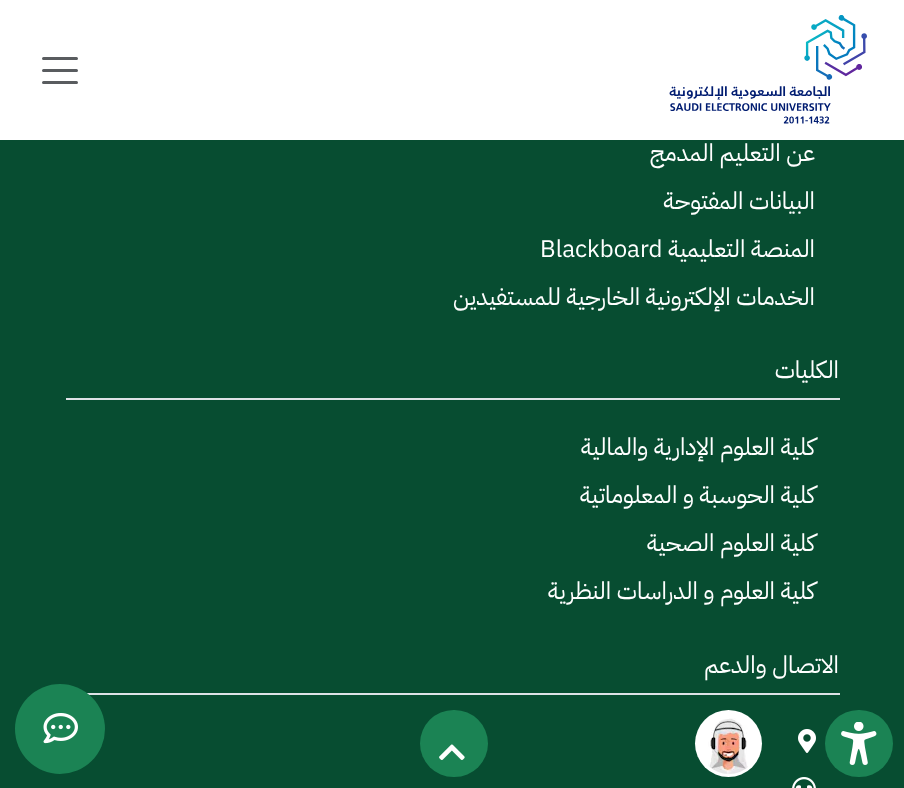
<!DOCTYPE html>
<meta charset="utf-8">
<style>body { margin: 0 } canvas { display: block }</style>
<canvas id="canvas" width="904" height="788"></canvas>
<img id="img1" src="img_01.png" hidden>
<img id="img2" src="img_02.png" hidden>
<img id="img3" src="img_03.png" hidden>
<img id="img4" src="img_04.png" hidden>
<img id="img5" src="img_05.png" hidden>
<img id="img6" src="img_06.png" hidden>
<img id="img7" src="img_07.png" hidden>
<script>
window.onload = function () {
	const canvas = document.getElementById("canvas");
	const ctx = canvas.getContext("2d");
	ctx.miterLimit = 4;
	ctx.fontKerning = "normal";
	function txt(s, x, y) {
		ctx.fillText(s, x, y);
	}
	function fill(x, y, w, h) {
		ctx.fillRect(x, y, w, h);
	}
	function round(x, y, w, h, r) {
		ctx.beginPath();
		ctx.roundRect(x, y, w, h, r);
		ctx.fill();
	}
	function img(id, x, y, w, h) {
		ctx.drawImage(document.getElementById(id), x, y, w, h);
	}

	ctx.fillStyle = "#074D31";
	fill(0, 0, 904, 788);
	ctx.fillStyle = "#FFFFFF";
	fill(0, 0, 904, 140);
	img("img1", 669, 15, 198, 109);
	ctx.beginPath();
	ctx.moveTo(43.5, 58.5);
	ctx.lineTo(76.5, 58.5);
	ctx.moveTo(43.5, 70.5);
	ctx.lineTo(76.5, 70.5);
	ctx.moveTo(43.5, 82.5);
	ctx.lineTo(76.5, 82.5);
	ctx.strokeStyle = "#595C5F";
	ctx.lineWidth = 3;
	ctx.lineCap = "round";
	ctx.stroke();
	ctx.fillStyle = "#DEE2E6";
	fill(66, 398, 774, 2);
	fill(87, 693, 753, 2);
	img("img2", 798, 729, 18, 24);
	img("img3", 792, 777, 24, 11);
	ctx.fillStyle = "#1B8354";
	round(825, 710, 68, 67, 33.5);
	img("img4", 841, 722, 36, 43);
	ctx.fillStyle = "#FFFFFF";
	ctx.beginPath();
	ctx.arc(728.5, 743.5, 33.5, 0, Math.PI * 2);
	ctx.fill();
	img("img5", 708, 718, 40, 56);
	ctx.fillStyle = "#1B8354";
	round(420, 710, 68, 67, 33.5);
	img("img6", 439, 744, 26, 16);
	ctx.beginPath();
	ctx.arc(60, 729, 45, 0, Math.PI * 2);
	ctx.fill();
	img("img7", 43, 713, 35, 31);
	ctx.direction = "rtl";
	ctx.font = "24px IBM Plex Sans Arabic";
	ctx.fillStyle = "#FFFFFF";
	txt("عن التعليم المدمج", 815, 161);
	txt("البيانات المفتوحة", 815, 209);
	txt("المنصة التعليمية", 815, 257);
	ctx.direction = "ltr";
	txt("Blackboard", 540, 257);
	ctx.direction = "rtl";
	txt("الخدمات الإلكترونية الخارجية للمستفيدين", 815, 305);
	txt("الكليات", 839, 378);
	txt("كلية العلوم الإدارية والمالية", 815, 455);
	txt("كلية الحوسبة و المعلوماتية", 815, 503);
	txt("كلية العلوم الصحية", 815, 551);
	txt("كلية العلوم و الدراسات النظرية", 815, 599);
	txt("الاتصال والدعم", 839, 673);
};
</script>
